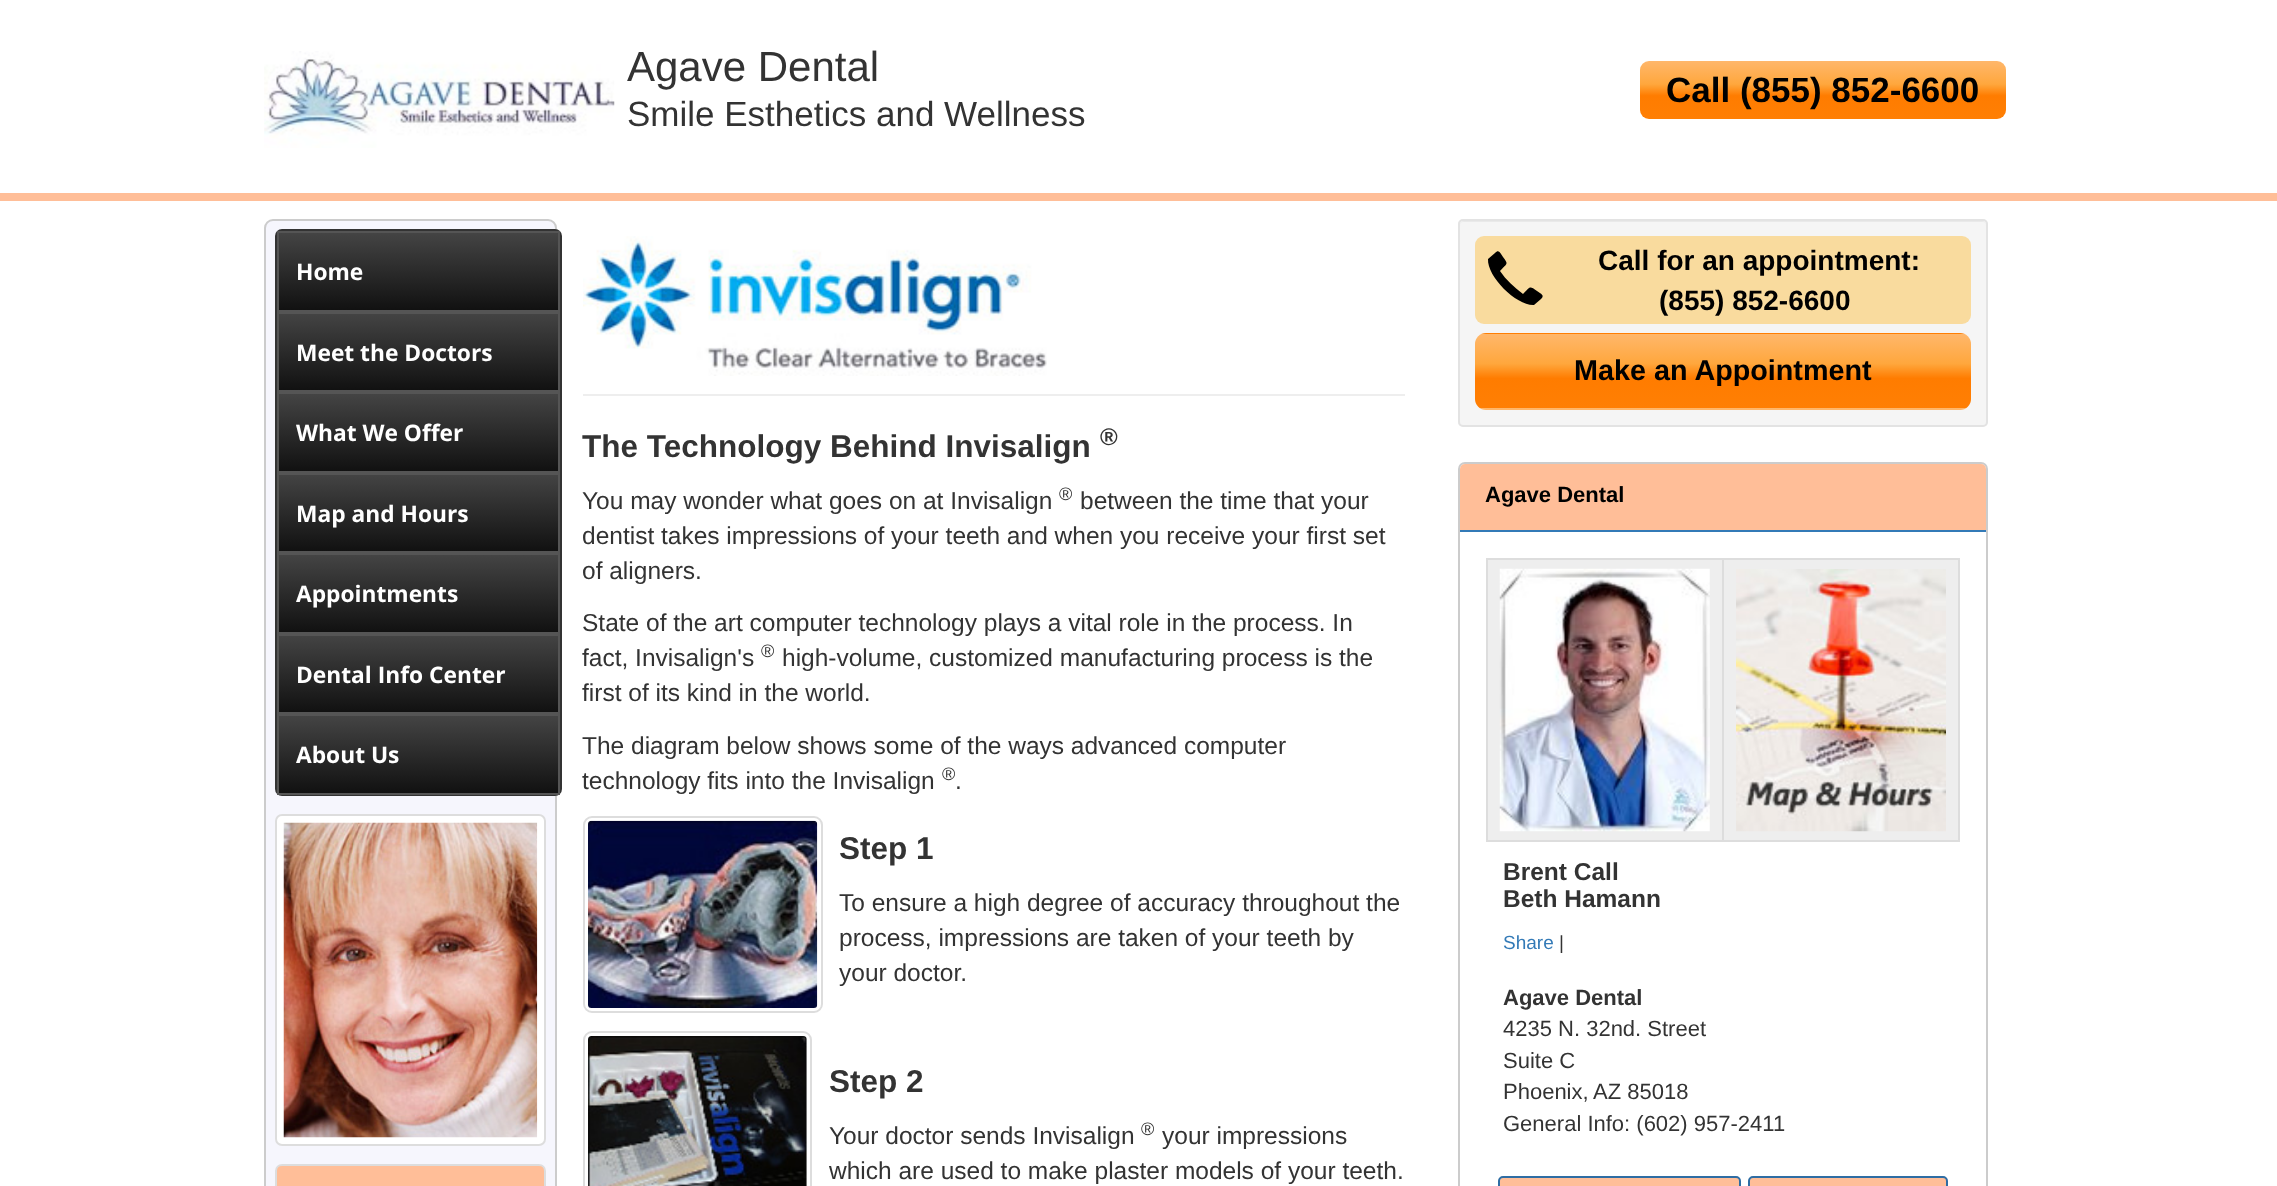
<!DOCTYPE html>
<meta charset="utf-8">
<style>body { margin: 0 } canvas { display: block }</style>
<canvas id="canvas" width="2277" height="1186"></canvas>
<img id="img1" src="img_01.png" hidden>
<img id="img2" src="img_02.png" hidden>
<img id="img3" src="img_03.png" hidden>
<img id="img4" src="img_04.png" hidden>
<img id="img5" src="img_05.png" hidden>
<img id="img6" src="img_06.png" hidden>
<img id="img7" src="img_07.png" hidden>
<script>
window.onload = function () {
	const canvas = document.getElementById("canvas");
	const ctx = canvas.getContext("2d");
	ctx.miterLimit = 4;
	ctx.fontKerning = "normal";
	function txt(s, x, y) {
		ctx.fillText(s, x, y);
	}
	function fill(x, y, w, h) {
		ctx.fillRect(x, y, w, h);
	}
	function round(x, y, w, h, r) {
		ctx.beginPath();
		ctx.roundRect(x, y, w, h, r);
		ctx.fill();
	}
	function img(id, x, y, w, h) {
		ctx.drawImage(document.getElementById(id), x, y, w, h);
	}
	let gradient;

	ctx.fillStyle = "#FFFFFF";
	fill(0, 0, 2277, 1186);
	ctx.fillStyle = "#FFBE98";
	fill(0, 193, 2277, 8);
	img("img1", 264, 51, 351, 97);
	gradient = ctx.createLinearGradient(1823, 61, 1823, 119);
	gradient.addColorStop(0, "#FFB76B");
	gradient.addColorStop(0.4, "#FFA73D");
	gradient.addColorStop(0.6, "#FF7C00");
	gradient.addColorStop(1, "#FF7F04");
	ctx.fillStyle = gradient;
	round(1640, 61, 366, 58, 9);
	ctx.fillStyle = "#F6F6FD";
	ctx.beginPath();
	ctx.roundRect(265, 220, 291, 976, 8);
	ctx.fill();
	ctx.strokeStyle = "#CCCCCC";
	ctx.lineWidth = 2;
	ctx.stroke();
	ctx.beginPath();
	ctx.roundRect(276, 230, 285, 565, 6);
	ctx.strokeStyle = "#333333";
	ctx.stroke();
	gradient = ctx.createLinearGradient(418, 233, 418, 310);
	gradient.addColorStop(0, "#444444");
	gradient.addColorStop(1, "#111111");
	ctx.fillStyle = gradient;
	fill(279, 233, 279, 77);
	ctx.strokeStyle = "#555555";
	ctx.strokeRect(278, 232, 281, 79);
	gradient = ctx.createLinearGradient(418, 313, 418, 390);
	gradient.addColorStop(0, "#444444");
	gradient.addColorStop(1, "#111111");
	ctx.fillStyle = gradient;
	fill(279, 314, 279, 76);
	ctx.strokeRect(278, 313, 281, 78);
	gradient = ctx.createLinearGradient(418, 394, 418, 471);
	gradient.addColorStop(0, "#444444");
	gradient.addColorStop(1, "#111111");
	ctx.fillStyle = gradient;
	fill(279, 394, 279, 77);
	ctx.strokeRect(278, 393, 281, 79);
	gradient = ctx.createLinearGradient(418, 474, 418, 551);
	gradient.addColorStop(0, "#444444");
	gradient.addColorStop(1, "#111111");
	ctx.fillStyle = gradient;
	fill(279, 475, 279, 76);
	ctx.strokeRect(278, 474, 281, 78);
	gradient = ctx.createLinearGradient(418, 555, 418, 632);
	gradient.addColorStop(0, "#444444");
	gradient.addColorStop(1, "#111111");
	ctx.fillStyle = gradient;
	fill(279, 555, 279, 77);
	ctx.strokeRect(278, 554, 281, 79);
	gradient = ctx.createLinearGradient(418, 635, 418, 712);
	gradient.addColorStop(0, "#444444");
	gradient.addColorStop(1, "#111111");
	ctx.fillStyle = gradient;
	fill(279, 636, 279, 76);
	ctx.strokeRect(278, 635, 281, 78);
	gradient = ctx.createLinearGradient(418, 716, 418, 793);
	gradient.addColorStop(0, "#444444");
	gradient.addColorStop(1, "#111111");
	ctx.fillStyle = gradient;
	fill(279, 716, 279, 77);
	ctx.strokeRect(278, 715, 281, 79);
	ctx.fillStyle = "#FFFFFF";
	ctx.beginPath();
	ctx.roundRect(276, 815, 269, 330, 6);
	ctx.fill();
	ctx.strokeStyle = "#DDDDDD";
	ctx.stroke();
	img("img2", 283, 822, 255, 316);
	ctx.fillStyle = "#FFBE98";
	ctx.beginPath();
	ctx.moveTo(282, 1165);
	ctx.lineTo(539, 1165);
	ctx.bezierCurveTo(542.5, 1165, 545, 1167.5, 545, 1171);
	ctx.lineTo(545, 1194);
	ctx.lineTo(276, 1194);
	ctx.lineTo(276, 1171);
	ctx.bezierCurveTo(276, 1167.5, 278.5, 1165, 282, 1165);
	ctx.closePath();
	ctx.fill();
	ctx.stroke();
	ctx.fillStyle = "#EEEEEE";
	fill(583, 394, 822, 2);
	img("img3", 583, 236, 464, 140);
	ctx.beginPath();
	ctx.roundRect(584, 817, 238, 195, 8);
	ctx.stroke();
	img("img4", 588, 820, 230, 188);
	ctx.beginPath();
	ctx.roundRect(584, 1032, 227, 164, 8);
	ctx.stroke();
	img("img5", 588, 1036, 219, 150);
	ctx.fillStyle = "#F5F5F5";
	round(1458, 219, 530, 208, 5);
	ctx.fillStyle = "#E9E9E9";
	ctx.beginPath();
	ctx.moveTo(1463, 222);
	ctx.lineTo(1983, 222);
	ctx.bezierCurveTo(1985, 222, 1986, 224, 1986, 226);
	ctx.lineTo(1986, 225);
	ctx.bezierCurveTo(1986, 223, 1984, 221, 1982, 221);
	ctx.lineTo(1464, 221);
	ctx.bezierCurveTo(1462, 221, 1460, 223, 1460, 225);
	ctx.lineTo(1460, 226);
	ctx.bezierCurveTo(1460, 224, 1461, 222, 1463, 222);
	ctx.closePath();
	ctx.fill();
	ctx.beginPath();
	ctx.roundRect(1459, 220, 528, 206, 4);
	ctx.strokeStyle = "#E3E3E3";
	ctx.stroke();
	ctx.fillStyle = "#F9DB9E";
	round(1475, 236, 496, 88, 9);
	ctx.fillStyle = "#000000";
	ctx.beginPath();
	ctx.moveTo(1488, 259);
	ctx.bezierCurveTo(1487, 277, 1517, 306, 1534, 305);
	ctx.lineTo(1541, 299);
	ctx.bezierCurveTo(1545, 295, 1541, 294, 1537, 291);
	ctx.bezierCurveTo(1529, 285, 1530, 287, 1523, 294);
	ctx.bezierCurveTo(1514, 287, 1506, 280, 1500, 271);
	ctx.bezierCurveTo(1507, 263, 1509, 265, 1503, 257);
	ctx.bezierCurveTo(1500, 253, 1499, 249, 1495, 253);
	ctx.closePath();
	ctx.fill();
	ctx.save();
	ctx.beginPath();
	ctx.roundRect(1475, 333, 496, 77, 11);
	ctx.clip();
	gradient = ctx.createLinearGradient(1723, 261, 1723, 334);
	gradient.addColorStop(0, "#FFB76B");
	gradient.addColorStop(0.4, "#FFA73D");
	gradient.addColorStop(0.6, "#FF7C00");
	gradient.addColorStop(1, "#FF7F04");
	ctx.fillStyle = gradient;
	fill(1475, 333, 496, 1);
	gradient = ctx.createLinearGradient(1723, 334, 1723, 408);
	gradient.addColorStop(0, "#FFB76B");
	gradient.addColorStop(0.4, "#FFA73D");
	gradient.addColorStop(0.6, "#FF7C00");
	gradient.addColorStop(1, "#FF7F04");
	ctx.fillStyle = gradient;
	fill(1475, 334, 496, 74);
	gradient = ctx.createLinearGradient(1723, 408, 1723, 481);
	gradient.addColorStop(0, "#FFB76B");
	gradient.addColorStop(0.4, "#FFA73D");
	gradient.addColorStop(0.6, "#FF7C00");
	gradient.addColorStop(1, "#FF7F04");
	ctx.fillStyle = gradient;
	fill(1475, 408, 496, 2);
	ctx.restore();
	ctx.beginPath();
	ctx.roundRect(1459, 463, 528, 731, 6);
	ctx.strokeStyle = "#CCCCCC";
	ctx.stroke();
	ctx.fillStyle = "#FFBE98";
	ctx.beginPath();
	ctx.roundRect(1460, 464, 526, 68, [5, 5, 0, 0]);
	ctx.fill();
	ctx.fillStyle = "#337AB7";
	fill(1460, 530, 526, 2);
	ctx.fillStyle = "#EEEEEE";
	fill(1488, 560, 470, 280);
	ctx.fillStyle = "#DDDDDD";
	fill(1486, 558, 474, 2);
	fill(1958, 558, 2, 284);
	fill(1486, 840, 474, 2);
	fill(1486, 558, 2, 284);
	img("img6", 1499, 568, 211, 264);
	fill(1722, 558, 2, 284);
	img("img7", 1736, 569, 210, 263);
	ctx.fillStyle = "#FFBE98";
	ctx.beginPath();
	ctx.roundRect(1499, 1177, 241, 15, 4);
	ctx.fill();
	ctx.strokeStyle = "#2E6DA4";
	ctx.stroke();
	ctx.beginPath();
	ctx.roundRect(1749, 1177, 198, 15, 4);
	ctx.fill();
	ctx.stroke();
	ctx.font = "42px Liberation Sans";
	ctx.fillStyle = "#333333";
	txt("Agave Dental", 627, 81);
	ctx.font = "35px Liberation Sans";
	txt("Smile Esthetics and Wellness", 627, 126);
	ctx.font = "bold 35px Liberation Sans";
	ctx.fillStyle = "#000000";
	txt("Call (855) 852-6600", 1666, 102);
	ctx.font = "bold 22.75px Open Sans";
	ctx.fillStyle = "#FFFFFF";
	txt("Home", 296, 280);
	txt("Meet the Doctors", 296, 361);
	txt("What We Offer", 296, 441);
	txt("Map and Hours", 296, 522);
	txt("Appointments", 296, 602);
	txt("Dental Info Center", 296, 683);
	txt("About Us", 296, 763);
	ctx.font = "bold 31.5px Liberation Sans";
	ctx.fillStyle = "#333333";
	txt("The Technology Behind Invisalign", 582, 457);
	ctx.font = "bold 24px Liberation Sans";
	txt("®", 1100, 445);
	ctx.font = "24.5px Liberation Sans";
	txt("You may wonder what goes on at Invisalign", 582, 509);
	ctx.font = "18px Liberation Sans";
	txt("®", 1059, 500);
	ctx.font = "24.5px Liberation Sans";
	txt("between the time that your", 1080, 509);
	txt("dentist takes impressions of your teeth and when you receive your first set", 582, 544);
	txt("of aligners.", 582, 579);
	txt("State of the art computer technology plays a vital role in the process. In", 582, 631);
	txt("fact, Invisalign's", 582, 666);
	ctx.font = "18px Liberation Sans";
	txt("®", 761, 657);
	ctx.font = "24.5px Liberation Sans";
	txt("high-volume, customized manufacturing process is the", 782, 666);
	txt("first of its kind in the world.", 582, 701);
	txt("The diagram below shows some of the ways advanced computer", 582, 754);
	txt("technology fits into the Invisalign", 582, 789);
	ctx.font = "18px Liberation Sans";
	txt("®", 942, 780);
	ctx.font = "24.5px Liberation Sans";
	txt(".", 955, 789);
	ctx.font = "bold 31.5px Liberation Sans";
	txt("Step 1", 839, 859);
	ctx.font = "24.5px Liberation Sans";
	txt("To ensure a high degree of accuracy throughout the", 839, 911);
	txt("process, impressions are taken of your teeth by", 839, 946);
	txt("your doctor.", 839, 981);
	ctx.font = "bold 31.5px Liberation Sans";
	txt("Step 2", 829, 1092);
	ctx.font = "24.5px Liberation Sans";
	txt("Your doctor sends Invisalign", 829, 1144);
	ctx.font = "18px Liberation Sans";
	txt("®", 1141, 1135);
	ctx.font = "24.5px Liberation Sans";
	txt("your impressions", 1162, 1144);
	txt("which are used to make plaster models of your teeth.", 829, 1179);
	ctx.font = "bold 28px Liberation Sans";
	ctx.fillStyle = "#000000";
	txt("Call for an appointment:", 1598, 270);
	txt("(855) 852-6600", 1659, 310);
	ctx.font = "bold 28.75px Liberation Sans";
	txt("Make an Appointment", 1574, 380);
	ctx.font = "bold 22px Liberation Sans";
	txt("Agave Dental", 1485, 502);
	ctx.font = "bold 24.5px Liberation Sans";
	ctx.fillStyle = "#333333";
	txt("Brent Call", 1503, 880);
	txt("Beth Hamann", 1503, 907);
	ctx.font = "19px Liberation Sans";
	ctx.fillStyle = "#337AB7";
	txt("Share", 1503, 949);
	ctx.fillStyle = "#333333";
	txt("|", 1559, 949);
	ctx.font = "bold 22px Liberation Sans";
	txt("Agave Dental", 1503, 1005);
	ctx.font = "22px Liberation Sans";
	txt("4235 N. 32nd. Street", 1503, 1036);
	txt("Suite C", 1503, 1068);
	txt("Phoenix,", 1503, 1099);
	txt("AZ 85018", 1593, 1099);
	txt("General Info: (602) 957-2411", 1503, 1131);
};
</script>
